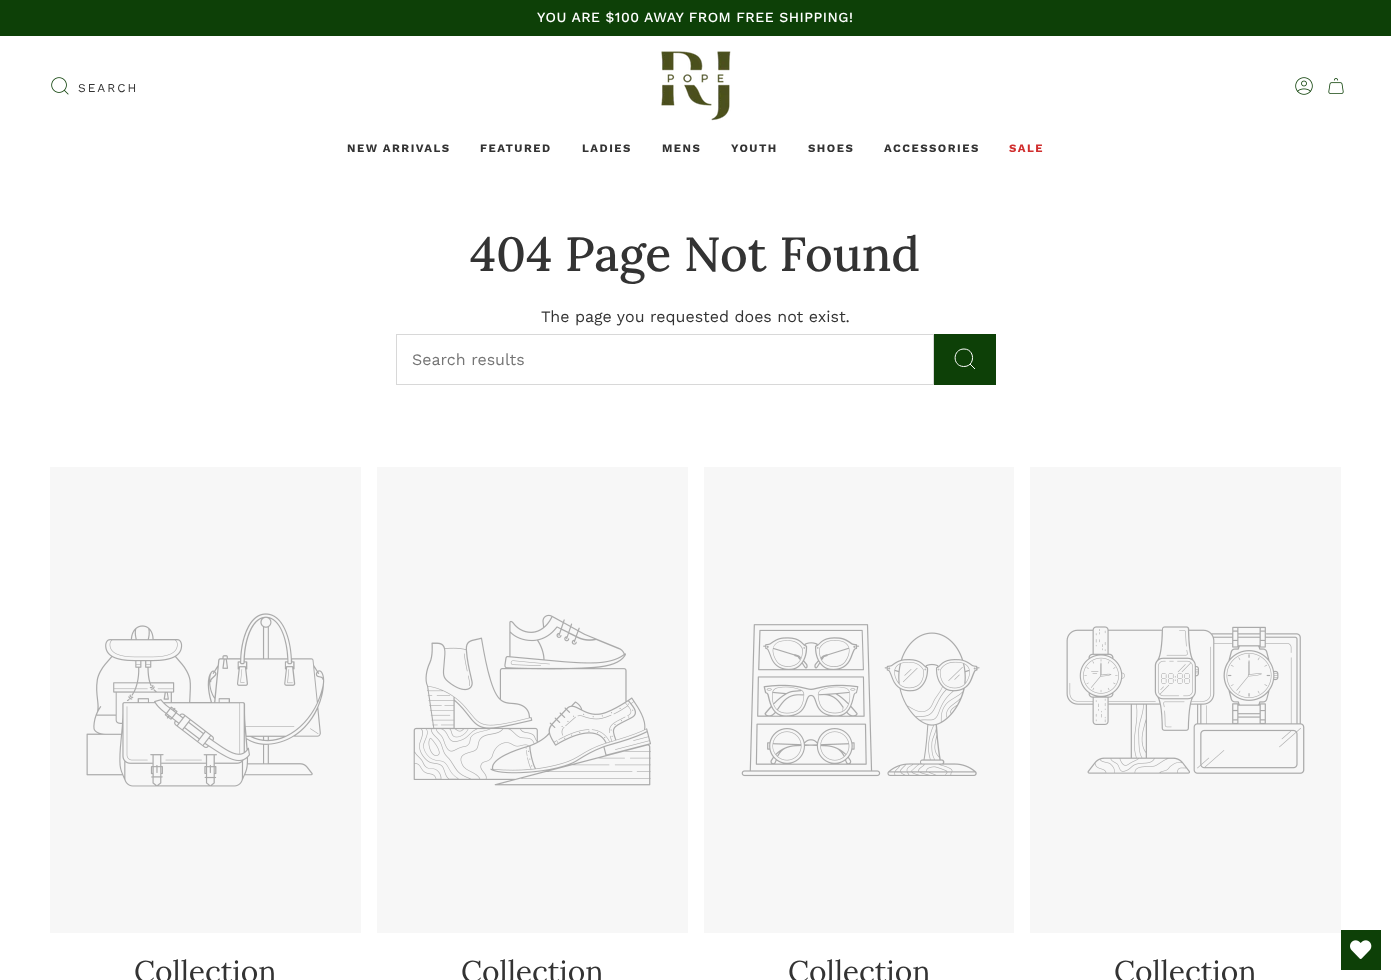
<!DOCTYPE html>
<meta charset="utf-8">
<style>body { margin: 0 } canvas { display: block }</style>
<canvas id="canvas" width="1391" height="980"></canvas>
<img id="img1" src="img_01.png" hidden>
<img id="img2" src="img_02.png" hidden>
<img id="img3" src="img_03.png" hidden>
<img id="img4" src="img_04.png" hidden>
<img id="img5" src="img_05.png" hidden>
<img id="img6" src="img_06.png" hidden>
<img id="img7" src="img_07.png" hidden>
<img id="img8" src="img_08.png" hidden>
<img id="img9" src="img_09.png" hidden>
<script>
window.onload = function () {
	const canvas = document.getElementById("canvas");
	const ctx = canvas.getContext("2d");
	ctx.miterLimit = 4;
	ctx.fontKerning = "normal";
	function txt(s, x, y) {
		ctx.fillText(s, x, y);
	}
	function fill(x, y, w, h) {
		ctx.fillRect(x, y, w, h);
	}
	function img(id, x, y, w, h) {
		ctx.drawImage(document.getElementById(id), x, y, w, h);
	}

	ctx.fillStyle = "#FFFFFF";
	fill(0, 0, 1391, 980);
	ctx.fillStyle = "#0D4007";
	fill(0, 0, 1391, 36);
	img("img1", 51, 77, 18, 18);
	img("img2", 661, 51, 70, 70);
	img("img3", 1295, 77, 18, 18);
	img("img4", 1328, 78, 16, 16);
	ctx.strokeStyle = "#D8D8D8";
	ctx.strokeRect(396.5, 334.5, 537, 50);
	fill(934, 334, 62, 51);
	ctx.beginPath();
	ctx.moveTo(964, 349);
	ctx.bezierCurveTo(975.5, 349, 975.5, 367, 963.5, 366.5);
	ctx.bezierCurveTo(952, 366, 952.5, 349, 964, 349);
	ctx.closePath();
	ctx.moveTo(970, 364);
	ctx.lineTo(975, 369);
	ctx.strokeStyle = "#FFFFFF";
	ctx.stroke();
	ctx.fillStyle = "#F7F7F7";
	fill(50, 467, 311, 466);
	img("img5", 86, 613, 239, 174);
	fill(377, 467, 311, 466);
	img("img6", 413, 614, 238, 172);
	fill(704, 467, 310, 466);
	img("img7", 741, 624, 239, 153);
	fill(1030, 467, 311, 466);
	img("img8", 1066, 626, 239, 148);
	ctx.fillStyle = "#0D4007";
	fill(1341, 930, 40, 40);
	img("img9", 1350, 940, 22, 19);
	ctx.letterSpacing = "0.5px";
	ctx.font = "500 14px Work Sans";
	ctx.fillStyle = "#FFFFFF";
	txt("YOU ARE $100", 537, 22);
	txt("AWAY FROM FREE SHIPPING!", 644, 22);
	ctx.letterSpacing = "2px";
	ctx.font = "12px Work Sans";
	ctx.fillStyle = "#333333";
	txt("SEARCH", 78, 92);
	ctx.letterSpacing = "1.5px";
	ctx.font = "bold 11.4px Work Sans";
	txt("NEW ARRIVALS", 347, 152);
	txt("FEATURED", 480, 152);
	txt("LADIES", 582, 152);
	txt("MENS", 662, 152);
	txt("YOUTH", 731, 152);
	txt("SHOES", 808, 152);
	txt("ACCESSORIES", 884, 152);
	ctx.fillStyle = "#D02E2E";
	txt("SALE", 1009, 152);
	ctx.letterSpacing = "0px";
	ctx.font = "500 48px Lora";
	ctx.fillStyle = "#333333";
	txt("404 Page Not Found", 470, 271);
	ctx.font = "16px Work Sans";
	txt("The page you requested does not exist.", 541, 322);
	ctx.fillStyle = "#757575";
	txt("Search results", 412, 365);
	ctx.font = "30px Lora";
	ctx.fillStyle = "#333333";
	txt("Collection", 134, 982);
	txt("Collection", 461, 982);
	txt("Collection", 788, 982);
	txt("Collection", 1114, 982);
};
</script>
